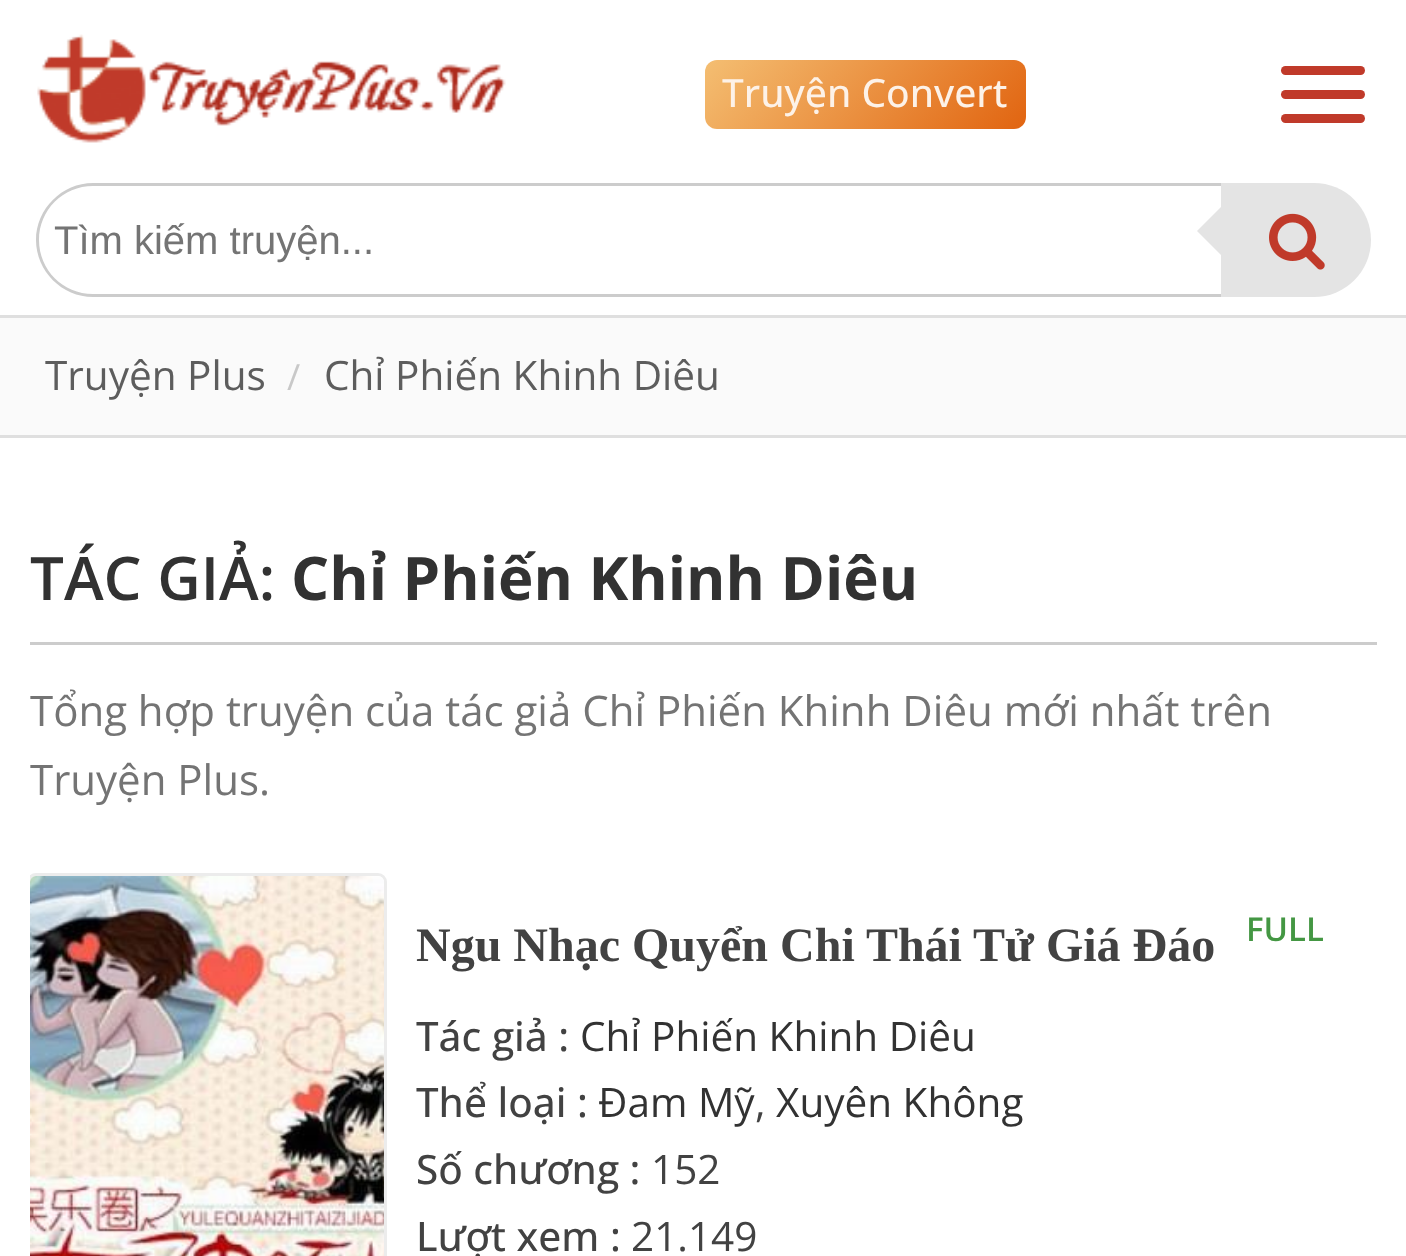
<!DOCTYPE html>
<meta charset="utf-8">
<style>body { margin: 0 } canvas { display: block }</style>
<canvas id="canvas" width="1406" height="1256"></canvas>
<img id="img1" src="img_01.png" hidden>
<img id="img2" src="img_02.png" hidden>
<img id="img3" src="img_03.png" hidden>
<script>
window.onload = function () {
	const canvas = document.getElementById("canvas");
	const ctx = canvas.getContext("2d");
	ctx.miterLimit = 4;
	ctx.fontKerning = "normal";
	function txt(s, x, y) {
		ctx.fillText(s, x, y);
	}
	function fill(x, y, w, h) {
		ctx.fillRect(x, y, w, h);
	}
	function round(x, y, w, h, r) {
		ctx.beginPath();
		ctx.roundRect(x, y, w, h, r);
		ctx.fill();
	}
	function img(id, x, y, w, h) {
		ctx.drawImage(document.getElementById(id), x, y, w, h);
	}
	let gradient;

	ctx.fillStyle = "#FFFFFF";
	fill(0, 0, 1406, 1256);
	img("img1", 37, 34, 469, 109);
	gradient = ctx.createLinearGradient(762, -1.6, 969, 191);
	gradient.addColorStop(0, "#F4BE72");
	gradient.addColorStop(1, "#E16410");
	ctx.fillStyle = gradient;
	round(705, 60, 321, 69, 12);
	ctx.fillStyle = "#C03A2A";
	round(1281, 66, 84, 9, 4.5);
	round(1281, 90, 84, 9, 4.5);
	round(1281, 114, 84, 9, 4.5);
	ctx.fillStyle = "#CCCCCC";
	ctx.beginPath();
	ctx.moveTo(93, 183);
	ctx.lineTo(1221, 183);
	ctx.lineTo(1221, 297);
	ctx.lineTo(93, 297);
	ctx.bezierCurveTo(62, 297, 36, 271, 36, 240);
	ctx.bezierCurveTo(36, 209, 62, 183, 93, 183);
	ctx.closePath();
	ctx.moveTo(93, 186);
	ctx.lineTo(1221, 186);
	ctx.lineTo(1221, 294);
	ctx.lineTo(93, 294);
	ctx.bezierCurveTo(63, 294, 39, 270, 39, 240);
	ctx.bezierCurveTo(39, 210, 63, 186, 93, 186);
	ctx.closePath();
	ctx.fill("evenodd");
	ctx.fillStyle = "#E4E4E4";
	ctx.beginPath();
	ctx.roundRect(1221, 183, 150, 114, [0, 57, 57, 0]);
	ctx.fill();
	ctx.beginPath();
	ctx.moveTo(1221, 207);
	ctx.lineTo(1221, 255);
	ctx.lineTo(1197, 231);
	ctx.closePath();
	ctx.fill();
	img("img2", 1269, 213, 56, 57);
	ctx.fillStyle = "#FAFAFA";
	fill(0, 318, 1406, 117);
	ctx.fillStyle = "#DFDFDF";
	fill(0, 315, 1406, 3);
	fill(0, 435, 1406, 3);
	ctx.fillStyle = "#CCCCCC";
	fill(30, 642, 1347, 3);
	ctx.save();
	ctx.beginPath();
	ctx.rect(30, 873, 357, 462);
	ctx.clip();
	ctx.beginPath();
	ctx.roundRect(28.5, 874.5, 357, 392, 7.5);
	ctx.strokeStyle = "#ECECEC";
	ctx.lineWidth = 3;
	ctx.stroke();
	ctx.restore();
	img("img3", 30, 876, 354, 380);
	ctx.font = "500 39px Open Sans";
	ctx.fillStyle = "#FDF2E8";
	txt("Truyện Convert", 722, 107);
	ctx.font = "40px Liberation Sans";
	ctx.fillStyle = "#747474";
	txt("Tìm kiếm truyện...", 54, 254);
	ctx.font = "40.5px Open Sans";
	ctx.fillStyle = "#5D5D5D";
	txt("Truyện Plus", 45, 390);
	ctx.font = "36px Open Sans";
	ctx.fillStyle = "#C8C8C8";
	txt("/", 287, 390);
	ctx.font = "40.5px Open Sans";
	ctx.fillStyle = "#5D5D5D";
	txt("Chỉ Phiến Khinh Diêu", 324, 390);
	ctx.font = "600 60px Open Sans";
	ctx.fillStyle = "#323232";
	txt("TÁC GIẢ:", 30, 600);
	ctx.font = "bold 60px Open Sans";
	txt("Chỉ Phiến Khinh Diêu", 291, 600);
	ctx.font = "42px Open Sans";
	ctx.fillStyle = "#747474";
	txt("Tổng hợp truyện của tác giả Chỉ Phiến Khinh Diêu mới nhất trên", 30, 726);
	txt("Truyện Plus.", 30, 795);
	ctx.font = "bold 48px Liberation Serif";
	ctx.fillStyle = "#424242";
	txt("Ngu Nhạc Quyển Chi Thái Tử Giá Đáo", 416, 961);
	ctx.font = "600 33px Open Sans";
	ctx.fillStyle = "#449743";
	txt("FULL", 1246, 941);
	ctx.font = "500 40.5px Open Sans";
	ctx.fillStyle = "#424242";
	txt("Tác giả :", 416, 1051);
	ctx.font = "40.5px Open Sans";
	ctx.fillStyle = "#323232";
	txt("Chỉ Phiến Khinh Diêu", 580, 1051);
	ctx.font = "500 40.5px Open Sans";
	ctx.fillStyle = "#424242";
	txt("Thể loại :", 416, 1117);
	ctx.font = "40.5px Open Sans";
	ctx.fillStyle = "#323232";
	txt("Đam Mỹ", 598, 1117);
	ctx.fillStyle = "#424242";
	txt(",", 755, 1117);
	ctx.fillStyle = "#323232";
	txt("Xuyên Không", 776, 1117);
	ctx.font = "500 40.5px Open Sans";
	ctx.fillStyle = "#424242";
	txt("Số chương :", 416, 1184);
	ctx.font = "40.5px Open Sans";
	txt("152", 651, 1184);
	ctx.font = "500 40.5px Open Sans";
	txt("Lượt xem :", 416, 1251);
	ctx.font = "40.5px Open Sans";
	txt("21.149", 631, 1251);
};
</script>
